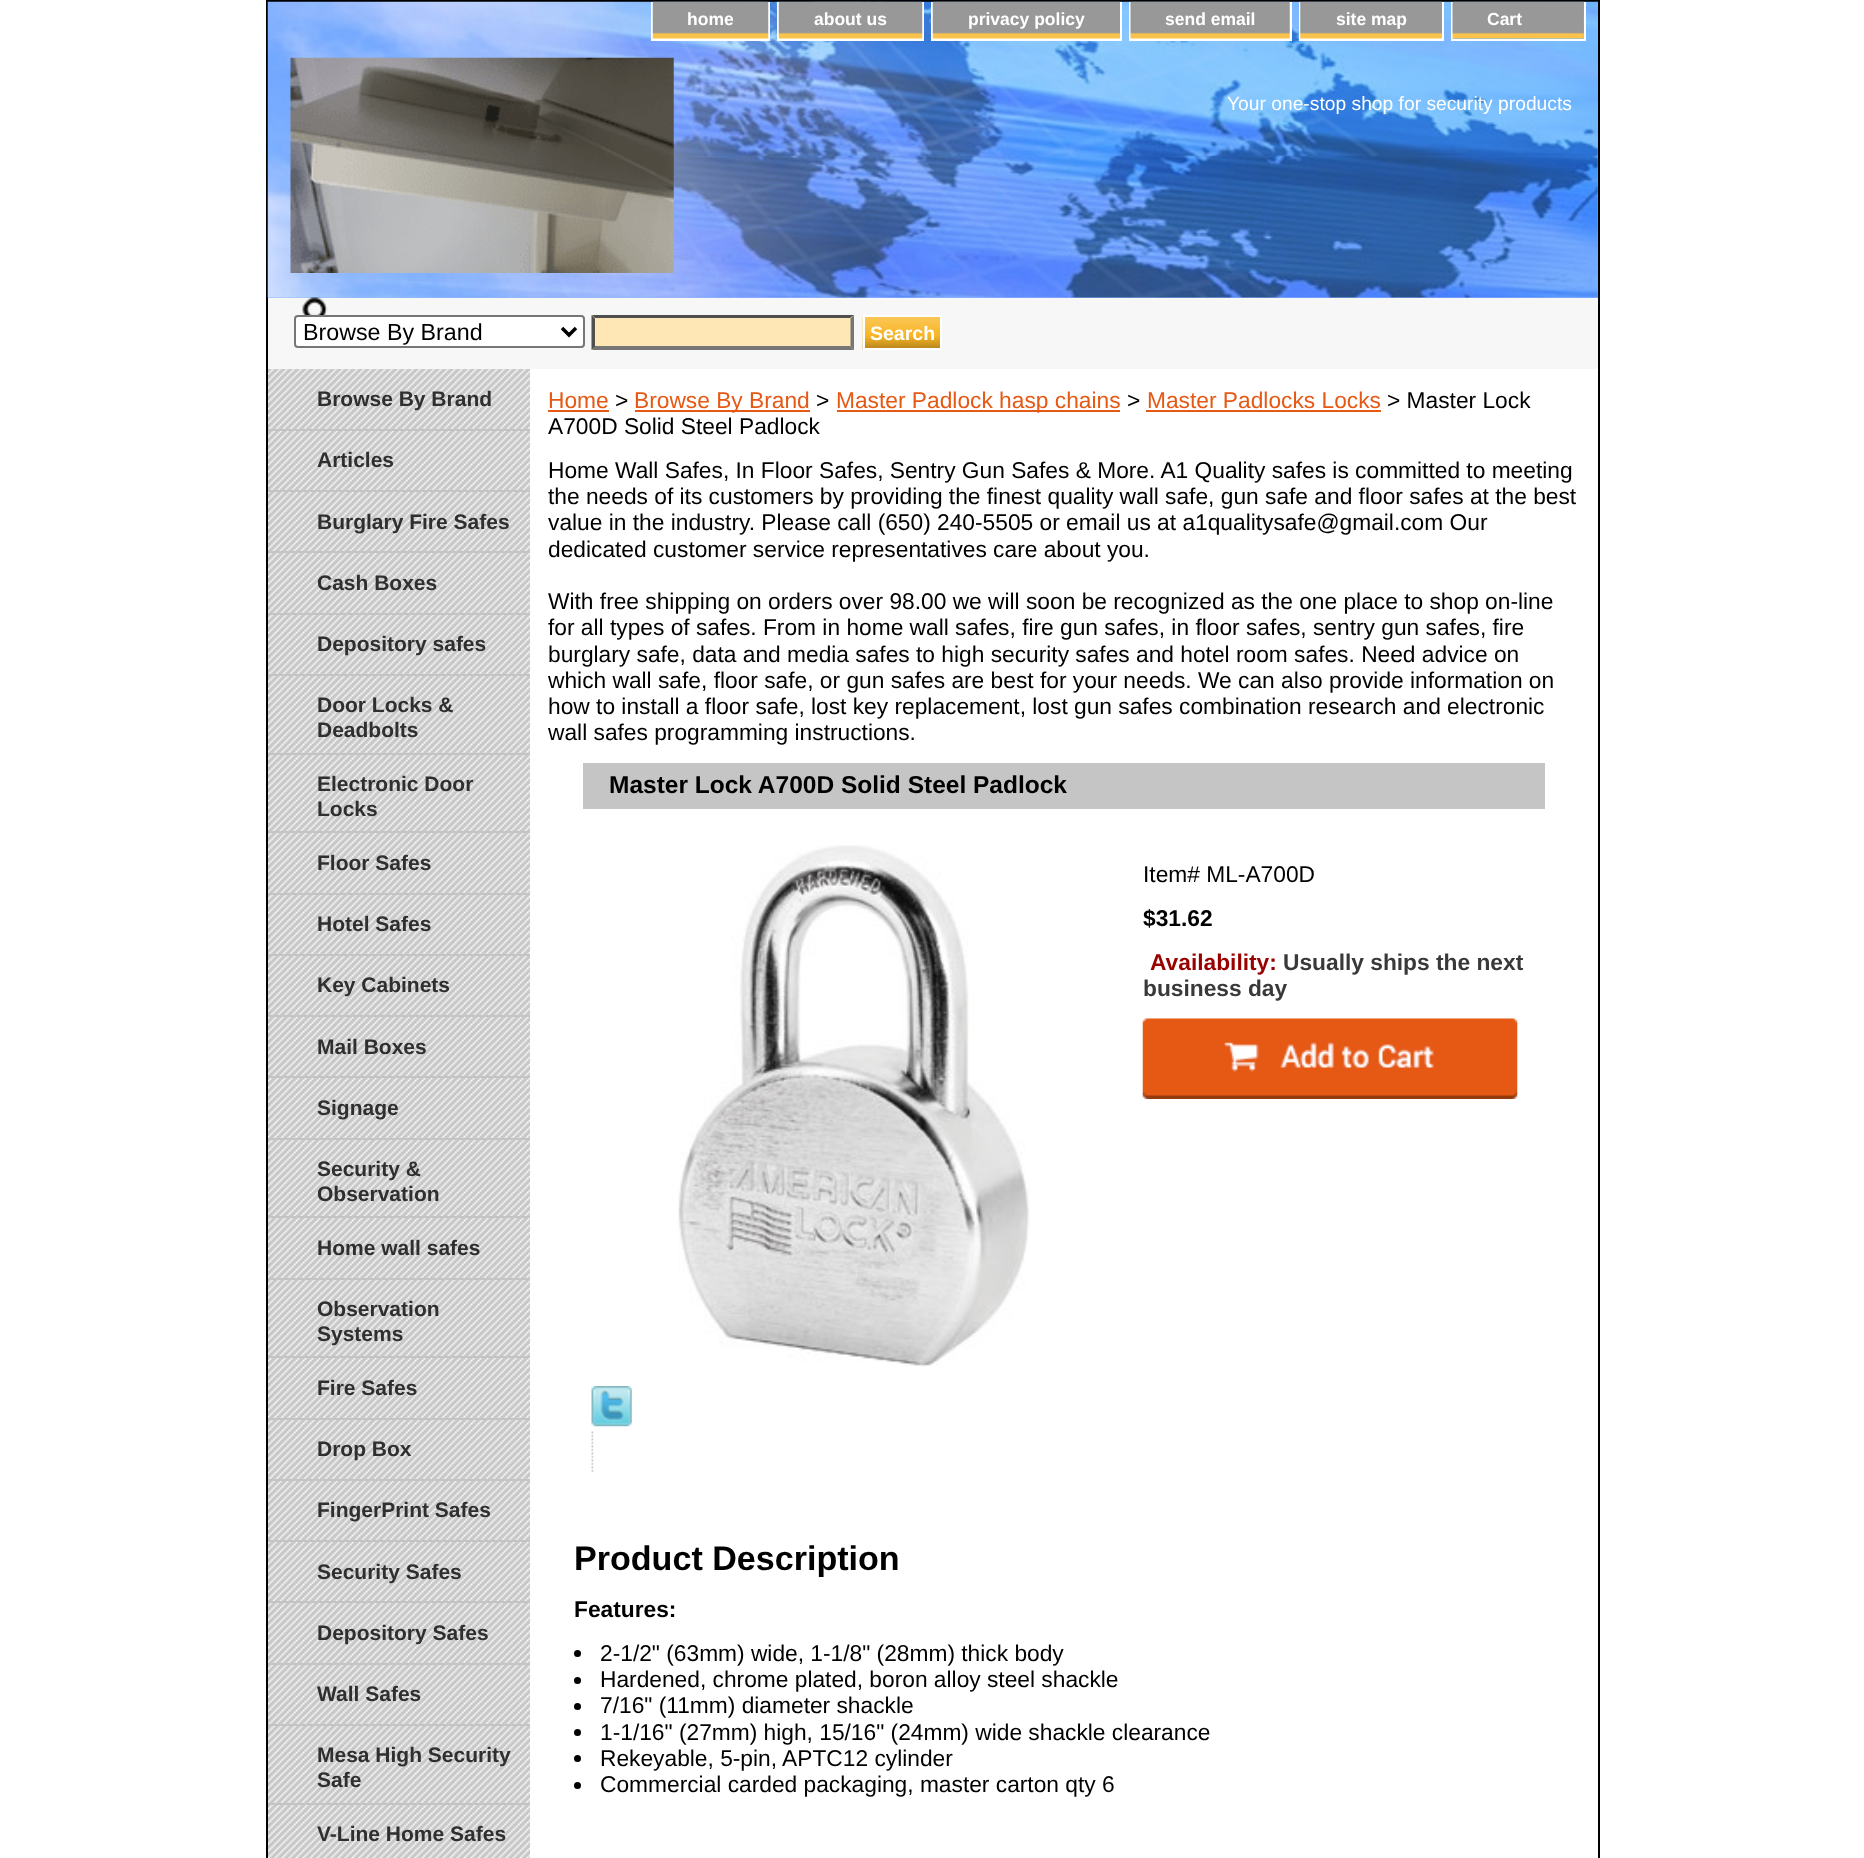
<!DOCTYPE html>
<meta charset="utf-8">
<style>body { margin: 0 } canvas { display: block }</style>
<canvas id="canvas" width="1864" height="1858"></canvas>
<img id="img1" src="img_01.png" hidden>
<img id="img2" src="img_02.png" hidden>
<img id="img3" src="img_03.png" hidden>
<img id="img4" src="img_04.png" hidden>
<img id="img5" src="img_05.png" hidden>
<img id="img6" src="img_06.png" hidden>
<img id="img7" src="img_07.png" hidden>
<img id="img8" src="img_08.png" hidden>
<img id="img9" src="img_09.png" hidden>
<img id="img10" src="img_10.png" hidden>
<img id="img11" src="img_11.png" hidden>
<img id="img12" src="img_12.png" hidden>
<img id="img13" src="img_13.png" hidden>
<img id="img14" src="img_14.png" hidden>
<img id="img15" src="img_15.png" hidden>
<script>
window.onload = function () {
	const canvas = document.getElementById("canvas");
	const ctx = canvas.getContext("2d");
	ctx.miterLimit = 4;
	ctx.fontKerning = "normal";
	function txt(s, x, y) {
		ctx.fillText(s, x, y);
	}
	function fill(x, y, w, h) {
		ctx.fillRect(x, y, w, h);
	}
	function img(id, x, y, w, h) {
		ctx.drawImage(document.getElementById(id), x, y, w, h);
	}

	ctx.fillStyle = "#FFFFFF";
	fill(0, 0, 1864, 1858);
	img("img1", 268, 369, 262, 1489);
	ctx.strokeStyle = "#000000";
	ctx.lineWidth = 2;
	ctx.strokeRect(267, 1, 1332, 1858);
	ctx.fillStyle = "#93BBFF";
	fill(268, 2, 1330, 296);
	img("img2", 267, 1, 1331, 297);
	ctx.fillStyle = "#FFFFFF";
	fill(768, 2, 2, 38);
	fill(651, 39, 119, 2);
	fill(651, 2, 2, 38);
	fill(653, 38, 115, 1);
	img("img3", 652, 1, 117, 38);
	fill(922, 2, 2, 38);
	fill(777, 39, 147, 2);
	fill(777, 2, 2, 38);
	fill(779, 38, 143, 1);
	img("img4", 778, 1, 145, 38);
	fill(1120, 2, 2, 38);
	fill(931, 39, 191, 2);
	fill(931, 2, 2, 38);
	fill(933, 38, 187, 1);
	img("img5", 932, 1, 188, 38);
	fill(1290, 2, 2, 38);
	fill(1129, 39, 163, 2);
	fill(1129, 2, 2, 38);
	fill(1131, 2, 159, 37);
	img("img6", 1130, 1, 160, 38);
	fill(1442, 2, 2, 38);
	fill(1299, 39, 145, 2);
	fill(1299, 2, 2, 38);
	fill(1301, 2, 141, 37);
	img("img7", 1300, 1, 142, 38);
	fill(1584, 2, 2, 38);
	fill(1451, 39, 135, 2);
	fill(1451, 2, 2, 38);
	img("img8", 1452, 1, 132, 38);
	img("img9", 290, 57, 384, 216);
	ctx.fillStyle = "#F7F7F7";
	fill(268, 298, 1330, 71);
	img("img10", 302, 297, 26, 18);
	ctx.fillStyle = "#FFFFFF";
	ctx.beginPath();
	ctx.roundRect(295, 316, 289, 31, 3);
	ctx.fill();
	ctx.strokeStyle = "#767676";
	ctx.stroke();
	ctx.beginPath();
	ctx.moveTo(562, 328);
	ctx.lineTo(569, 335);
	ctx.lineTo(576, 328);
	ctx.strokeStyle = "#000000";
	ctx.lineWidth = 3.5;
	ctx.stroke();
	ctx.fillStyle = "#FFE7B5";
	fill(592, 315, 262, 35);
	ctx.fillStyle = "#4F4F4F";
	ctx.beginPath();
	ctx.moveTo(592, 315);
	ctx.lineTo(854, 315);
	ctx.lineTo(850, 318);
	ctx.lineTo(595, 318);
	ctx.closePath();
	ctx.fill();
	ctx.fillStyle = "#767676";
	ctx.beginPath();
	ctx.moveTo(854, 315);
	ctx.lineTo(854, 350);
	ctx.lineTo(850.5, 346.5);
	ctx.lineTo(850.5, 318.5);
	ctx.closePath();
	ctx.fill();
	ctx.beginPath();
	ctx.moveTo(854, 350);
	ctx.lineTo(592, 350);
	ctx.lineTo(595, 346);
	ctx.lineTo(850, 346);
	ctx.closePath();
	ctx.fill();
	ctx.fillStyle = "#4F4F4F";
	ctx.beginPath();
	ctx.moveTo(591.5, 350);
	ctx.lineTo(591.5, 315);
	ctx.lineTo(595, 318.5);
	ctx.lineTo(595, 346.5);
	ctx.closePath();
	ctx.fill();
	img("img11", 862, 316, 78, 34);
	ctx.strokeStyle = "#FFFFFF";
	ctx.lineWidth = 2;
	ctx.strokeRect(864, 316, 77, 33);
	ctx.fillStyle = "#C4C4C4";
	fill(268, 429, 262, 2);
	fill(268, 490, 262, 2);
	fill(268, 551, 262, 2);
	fill(268, 613, 262, 2);
	fill(268, 674, 262, 2);
	fill(268, 753, 262, 2);
	fill(268, 831, 262, 2);
	fill(268, 893, 262, 2);
	fill(268, 954, 262, 2);
	fill(268, 1015, 262, 2);
	fill(268, 1076, 262, 2);
	fill(268, 1138, 262, 2);
	fill(268, 1216, 262, 2);
	fill(268, 1278, 262, 2);
	fill(268, 1356, 262, 2);
	fill(268, 1418, 262, 2);
	fill(268, 1479, 262, 2);
	fill(268, 1540, 262, 2);
	fill(268, 1601, 262, 2);
	fill(268, 1663, 262, 2);
	fill(268, 1724, 262, 2);
	fill(268, 1803, 262, 2);
	ctx.fillStyle = "#E55915";
	fill(548, 410, 61, 2);
	fill(635, 410, 175, 2);
	fill(837, 410, 283, 2);
	fill(1146, 410, 235, 2);
	ctx.fillStyle = "#C5C5C5";
	fill(583, 763, 962, 46);
	img("img12", 678, 845, 352, 522);
	img("img13", 1142, 1018, 376, 81);
	img("img14", 591, 1386, 41, 41);
	img("img15", 591, 1431, 3, 41);
	ctx.fillStyle = "#000000";
	ctx.beginPath();
	ctx.arc(577.5, 1653.5, 3.5, 0, Math.PI * 2);
	ctx.fill();
	ctx.beginPath();
	ctx.arc(577.5, 1680.5, 3.5, 0, Math.PI * 2);
	ctx.fill();
	ctx.beginPath();
	ctx.arc(577.5, 1706.5, 3.5, 0, Math.PI * 2);
	ctx.fill();
	ctx.beginPath();
	ctx.arc(577.5, 1732.5, 3.5, 0, Math.PI * 2);
	ctx.fill();
	ctx.beginPath();
	ctx.arc(577.5, 1758.5, 3.5, 0, Math.PI * 2);
	ctx.fill();
	ctx.beginPath();
	ctx.arc(577.5, 1785.5, 3.5, 0, Math.PI * 2);
	ctx.fill();
	ctx.font = "bold 17.5px Liberation Sans";
	ctx.fillStyle = "#FFFFFF";
	txt("home", 687, 25);
	txt("about us", 814, 25);
	txt("privacy policy", 968, 25);
	txt("send email", 1165, 25);
	txt("site map", 1336, 25);
	txt("Cart", 1487, 25);
	ctx.font = "19.25px Liberation Sans";
	txt("Your one-stop shop for security products", 1227, 110);
	ctx.font = "23.25px Liberation Sans";
	ctx.fillStyle = "#000000";
	txt("Browse By Brand", 303, 340);
	ctx.font = "bold 19.5px Liberation Sans";
	ctx.fillStyle = "#FFFFFF";
	txt("Search", 870, 340);
	ctx.font = "bold 21px Liberation Sans";
	ctx.fillStyle = "#2F2F2F";
	txt("Browse By Brand", 317, 406);
	txt("Articles", 317, 467);
	txt("Burglary Fire Safes", 317, 529);
	txt("Cash Boxes", 317, 590);
	txt("Depository safes", 317, 651);
	txt("Door Locks &", 317, 712);
	txt("Deadbolts", 317, 737);
	txt("Electronic Door", 317, 791);
	txt("Locks", 317, 816);
	txt("Floor Safes", 317, 870);
	txt("Hotel Safes", 317, 931);
	txt("Key Cabinets", 317, 992);
	txt("Mail Boxes", 317, 1054);
	txt("Signage", 317, 1115);
	txt("Security &", 317, 1176);
	txt("Observation", 317, 1201);
	txt("Home wall safes", 317, 1255);
	txt("Observation", 317, 1316);
	txt("Systems", 317, 1341);
	txt("Fire Safes", 317, 1395);
	txt("Drop Box", 317, 1456);
	txt("FingerPrint Safes", 317, 1517);
	txt("Security Safes", 317, 1579);
	txt("Depository Safes", 317, 1640);
	txt("Wall Safes", 317, 1701);
	txt("Mesa High Security", 317, 1762);
	txt("Safe", 317, 1787);
	txt("V-Line Home Safes", 317, 1841);
	ctx.font = "22.75px Liberation Sans";
	ctx.fillStyle = "#E55915";
	txt("Home", 548, 408);
	ctx.fillStyle = "#000000";
	txt(">", 615, 408);
	ctx.fillStyle = "#E55915";
	txt("Browse By Brand", 634, 408);
	ctx.fillStyle = "#000000";
	txt(">", 816, 408);
	ctx.fillStyle = "#E55915";
	txt("Master Padlock hasp chains", 836, 408);
	ctx.fillStyle = "#000000";
	txt(">", 1127, 408);
	ctx.fillStyle = "#E55915";
	txt("Master Padlocks Locks", 1147, 408);
	ctx.fillStyle = "#000000";
	txt("> Master Lock", 1387, 408);
	txt("A700D Solid Steel Padlock", 548, 434);
	txt("Home Wall Safes, In Floor Safes, Sentry Gun Safes & More. A1 Quality safes is committed to meeting", 548, 478);
	txt("the needs of its customers by providing the finest quality wall safe, gun safe and floor safes at the best", 548, 504);
	txt("value in the industry. Please call (650) 240-5505 or email us at a1qualitysafe@gmail.com Our", 548, 530);
	txt("dedicated customer service representatives care about you.", 548, 557);
	txt("With free shipping on orders over 98.00 we will soon be recognized as the one place to shop on-line", 548, 609);
	txt("for all types of safes. From in home wall safes, fire gun safes, in floor safes, sentry gun safes, fire", 548, 635);
	txt("burglary safe, data and media safes to high security safes and hotel room safes. Need advice on", 548, 662);
	txt("which wall safe, floor safe, or gun safes are best for your needs. We can also provide information on", 548, 688);
	txt("how to install a floor safe, lost key replacement, lost gun safes combination research and electronic", 548, 714);
	txt("wall safes programming instructions.", 548, 740);
	ctx.font = "bold 24.5px Liberation Sans";
	txt("Master Lock A700D Solid Steel Padlock", 609, 793);
	ctx.font = "22.75px Liberation Sans";
	txt("Item# ML-A700D", 1143, 882);
	ctx.font = "bold 22.75px Liberation Sans";
	txt("$31.62", 1143, 926);
	ctx.fillStyle = "#990000";
	txt("Availability:", 1150, 970);
	ctx.fillStyle = "#393939";
	txt("Usually ships the next", 1283, 970);
	txt("business day", 1143, 996);
	ctx.font = "bold 34.1px Liberation Sans";
	ctx.fillStyle = "#000000";
	txt("Product Description", 574, 1570);
	ctx.font = "bold 22.75px Liberation Sans";
	txt("Features:", 574, 1617);
	ctx.font = "22.75px Liberation Sans";
	txt("2-1/2\" (63mm) wide, 1-1/8\" (28mm) thick body", 600, 1661);
	txt("Hardened, chrome plated, boron alloy steel shackle", 600, 1687);
	txt("7/16\" (11mm) diameter shackle", 600, 1713);
	txt("1-1/16\" (27mm) high, 15/16\" (24mm) wide shackle clearance", 600, 1740);
	txt("Rekeyable, 5-pin, APTC12 cylinder", 600, 1766);
	txt("Commercial carded packaging, master carton qty 6", 600, 1792);
};
</script>
